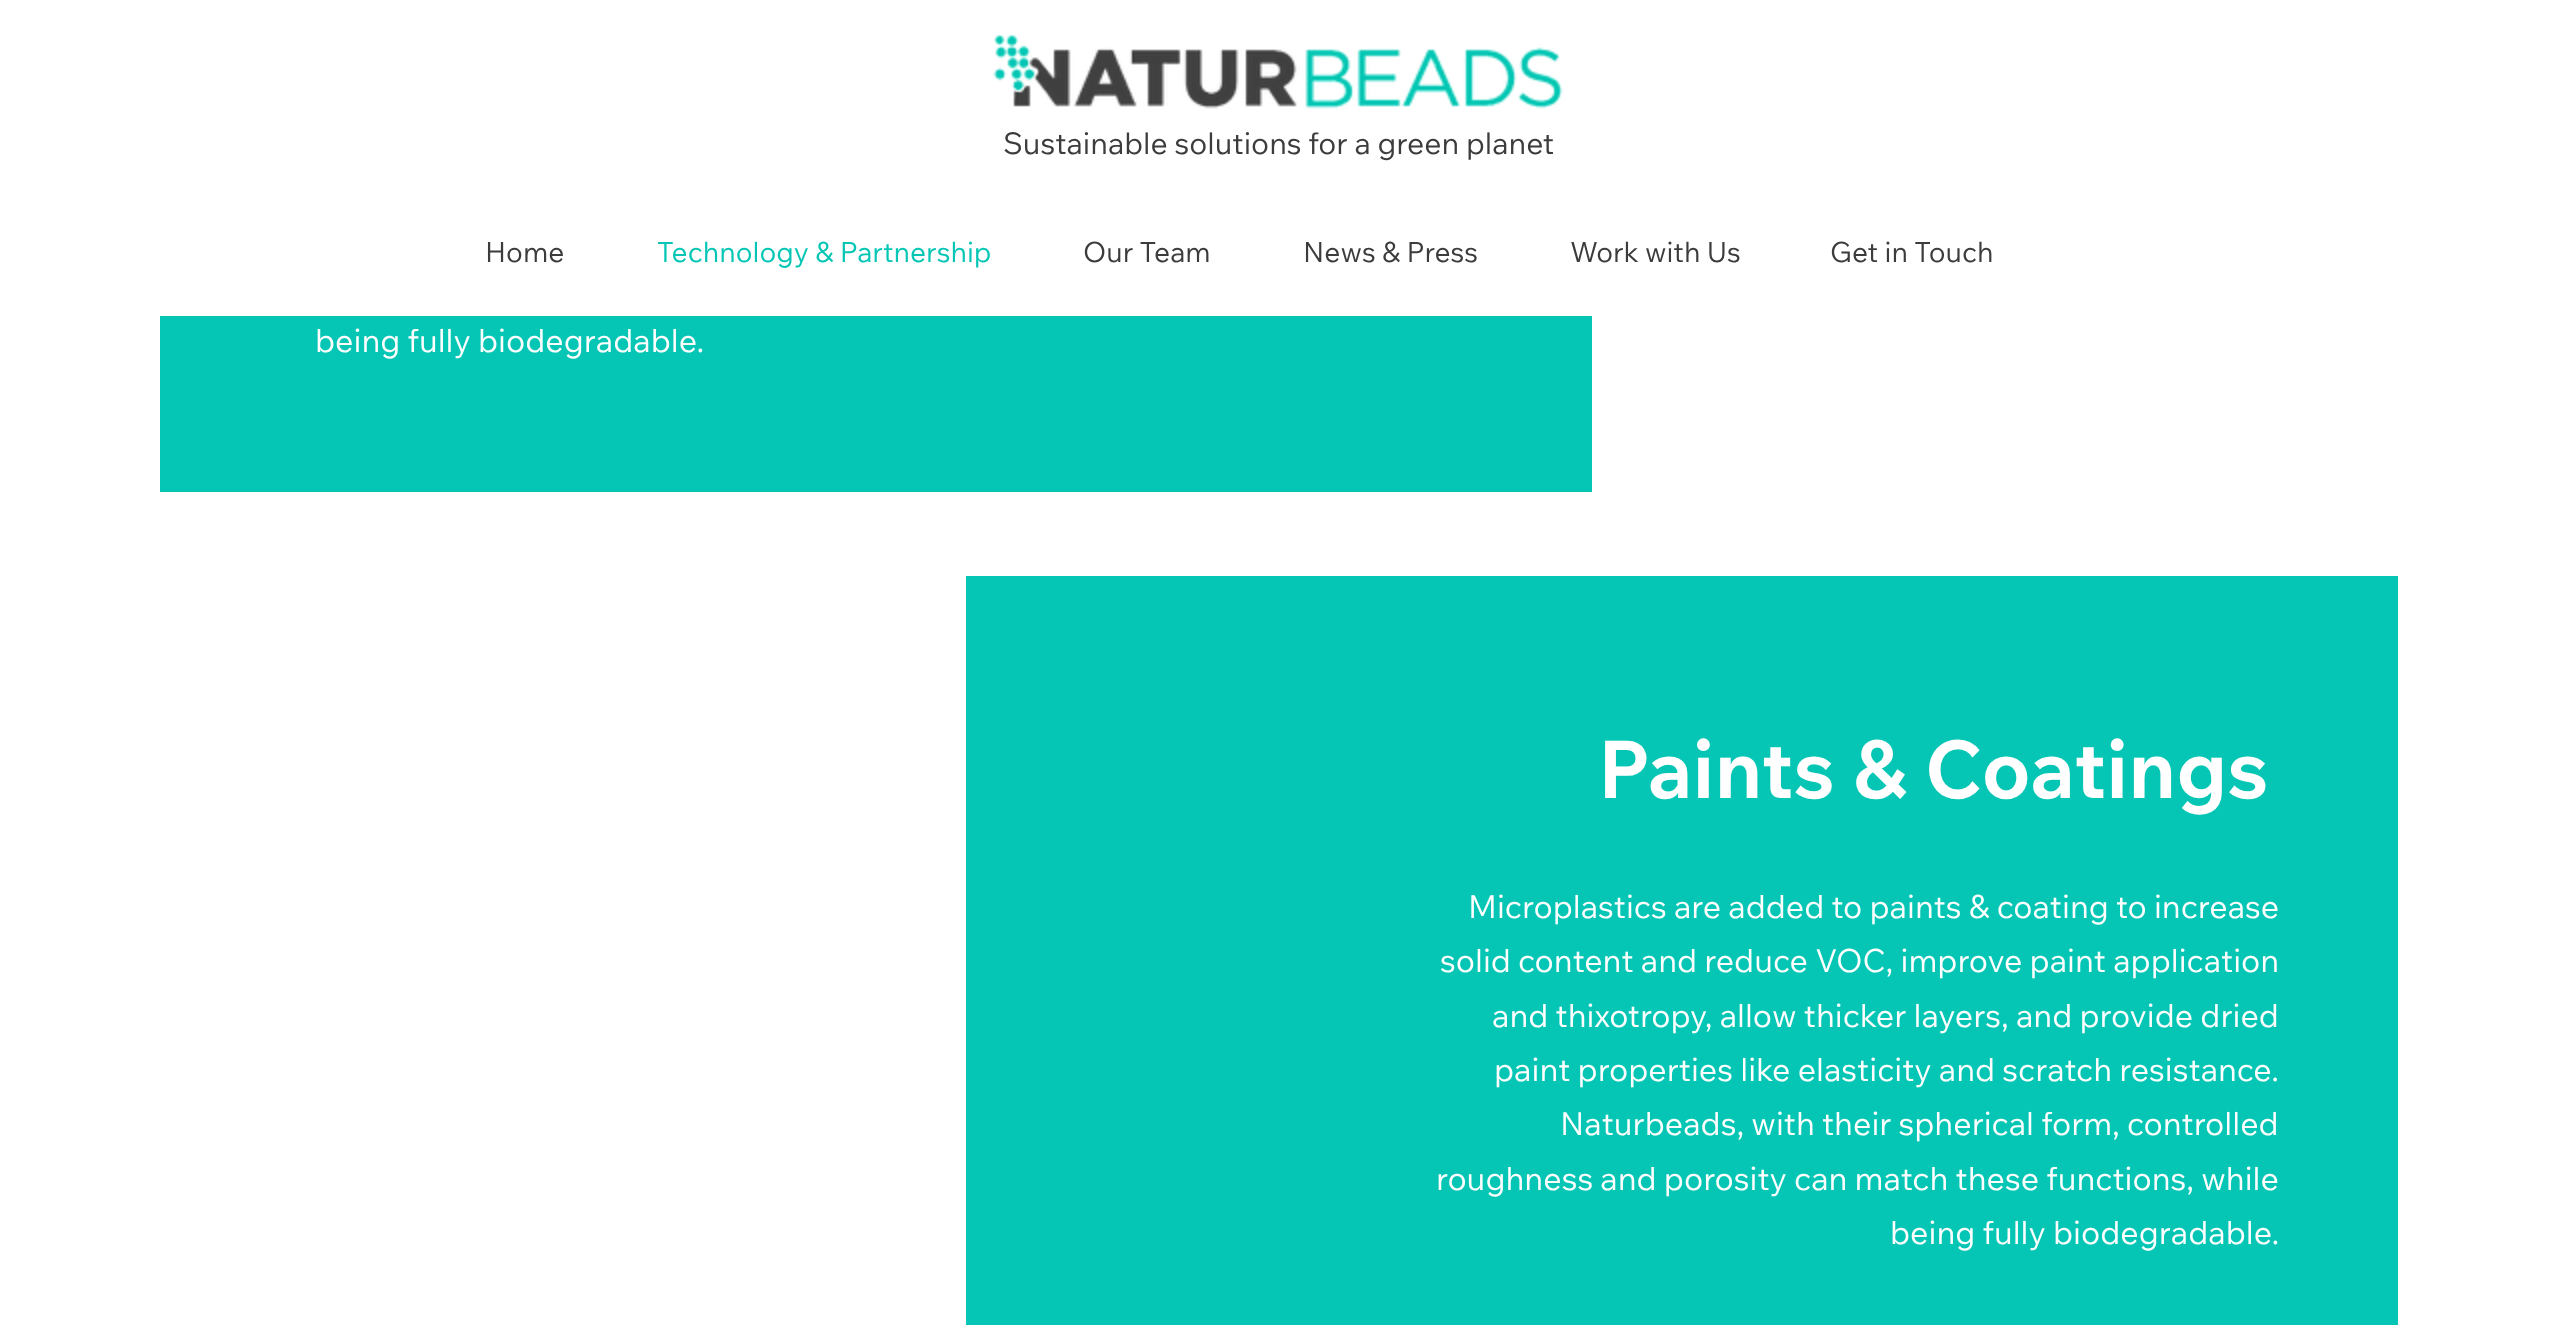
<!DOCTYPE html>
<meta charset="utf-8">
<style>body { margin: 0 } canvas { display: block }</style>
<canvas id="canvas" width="2558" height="1325"></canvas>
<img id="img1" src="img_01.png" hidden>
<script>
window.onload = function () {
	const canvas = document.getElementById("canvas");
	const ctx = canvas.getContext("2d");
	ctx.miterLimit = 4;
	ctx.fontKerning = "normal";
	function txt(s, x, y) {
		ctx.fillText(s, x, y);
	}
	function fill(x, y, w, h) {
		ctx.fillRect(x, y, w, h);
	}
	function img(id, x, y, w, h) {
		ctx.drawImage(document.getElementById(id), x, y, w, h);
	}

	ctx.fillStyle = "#FFFFFF";
	fill(0, 0, 2558, 1325);
	img("img1", 993, 33, 570, 76);
	ctx.fillStyle = "#05C6B5";
	fill(160, 316, 1432, 176);
	fill(966, 576, 1432, 749);
	ctx.font = "30px Wix Madefor Text";
	ctx.fillStyle = "#3C3C3C";
	txt("Sustainable solutions for a green planet", 1003, 154);
	ctx.font = "28px Wix Madefor Text";
	txt("Home", 485, 262);
	ctx.fillStyle = "#05C6B5";
	txt("Technology & Partnership", 657, 262);
	ctx.fillStyle = "#3C3C3C";
	txt("Our Team", 1083, 262);
	txt("News & Press", 1303, 262);
	txt("Work with Us", 1570, 262);
	txt("Get in Touch", 1830, 262);
	ctx.font = "32px Wix Madefor Text";
	ctx.fillStyle = "#FFFFFF";
	txt("being fully biodegradable.", 315, 352);
	ctx.font = "bold 80px Wix Madefor Text";
	txt("Paints & Coatings", 1598, 798);
	ctx.font = "32px Wix Madefor Text";
	txt("Microplastics are added to paints & coating to increase", 1468, 918);
	txt("solid content and reduce VOC, improve paint application", 1440, 972);
	txt("and thixotropy, allow thicker layers, and provide dried", 1492, 1027);
	txt("paint properties like elasticity and scratch resistance.", 1494, 1081);
	txt("Naturbeads, with their spherical form, controlled", 1560, 1135);
	txt("roughness and porosity can match these functions, while", 1436, 1190);
	txt("being fully biodegradable.", 1890, 1244);
};
</script>
